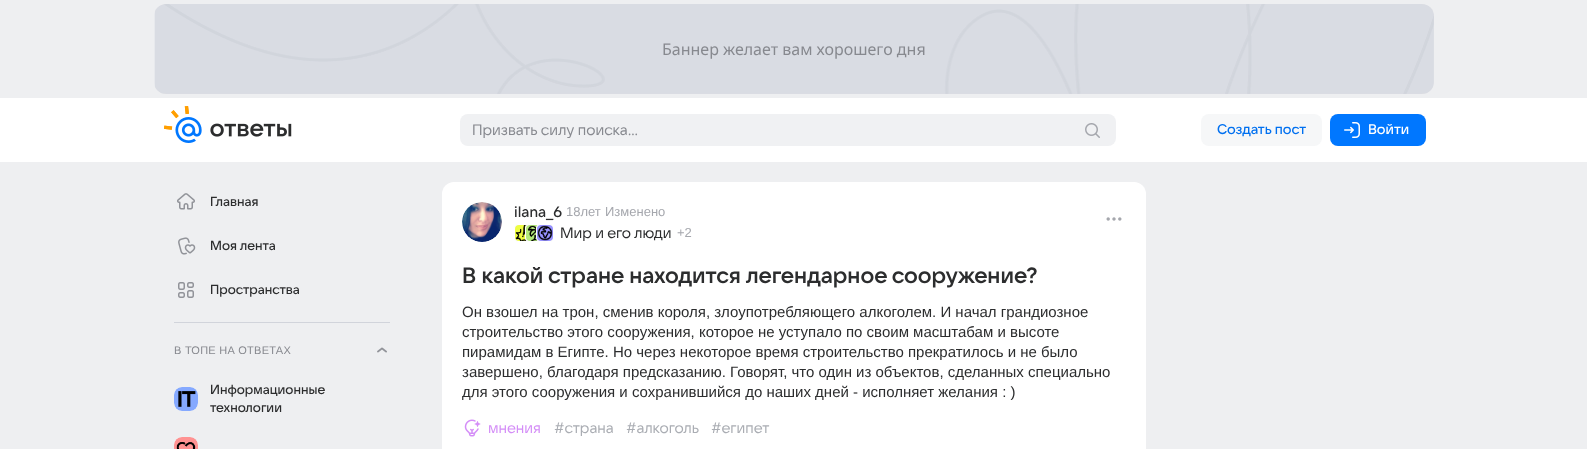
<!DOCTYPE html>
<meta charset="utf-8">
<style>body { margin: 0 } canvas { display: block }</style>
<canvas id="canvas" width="1587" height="449"></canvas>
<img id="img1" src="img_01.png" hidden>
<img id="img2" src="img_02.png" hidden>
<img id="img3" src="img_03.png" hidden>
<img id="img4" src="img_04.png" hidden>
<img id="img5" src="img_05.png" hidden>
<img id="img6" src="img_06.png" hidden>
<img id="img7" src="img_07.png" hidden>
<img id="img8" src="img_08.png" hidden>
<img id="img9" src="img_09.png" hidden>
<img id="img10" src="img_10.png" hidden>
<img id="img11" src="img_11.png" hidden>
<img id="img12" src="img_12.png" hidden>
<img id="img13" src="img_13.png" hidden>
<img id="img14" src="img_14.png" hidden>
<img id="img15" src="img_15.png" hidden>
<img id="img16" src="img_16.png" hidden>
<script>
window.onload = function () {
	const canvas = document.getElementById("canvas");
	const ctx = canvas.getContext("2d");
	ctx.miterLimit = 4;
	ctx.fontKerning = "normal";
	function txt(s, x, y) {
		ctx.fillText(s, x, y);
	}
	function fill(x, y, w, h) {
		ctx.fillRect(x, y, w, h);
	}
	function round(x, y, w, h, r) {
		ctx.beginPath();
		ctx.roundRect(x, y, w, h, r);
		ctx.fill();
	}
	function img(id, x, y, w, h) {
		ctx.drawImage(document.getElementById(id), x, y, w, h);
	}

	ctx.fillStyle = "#EEEFF1";
	fill(0, 0, 1587, 449);
	ctx.fillStyle = "#E7E9ED";
	round(154, 4, 1280, 90, 12);
	img("img1", 155, 4, 1279, 90);
	ctx.fillStyle = "#FFFFFF";
	fill(0, 98, 1587, 64);
	img("img2", 164, 106, 128, 37);
	ctx.fillStyle = "#F0F1F3";
	round(460, 114, 656, 32, 8);
	img("img3", 1085, 123, 15, 15);
	ctx.fillStyle = "#F6F7F8";
	round(1201, 114, 121, 32, 8);
	ctx.fillStyle = "#0077FF";
	round(1330, 114, 96, 32, 8);
	img("img4", 1344, 122, 16, 16);
	img("img5", 177, 193, 18, 17);
	img("img6", 178, 237, 18, 18);
	img("img7", 178, 282, 16, 16);
	ctx.fillStyle = "#D1D4DB";
	fill(174, 322, 216, 1);
	img("img8", 377, 347, 10, 6);
	img("img9", 174, 387, 24, 24);
	img("img10", 174, 437, 24, 12);
	ctx.fillStyle = "#FFFFFF";
	round(442, 182, 704, 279, 12);
	ctx.fillStyle = "#F0F1F3";
	ctx.beginPath();
	ctx.arc(482, 222, 20, 0, Math.PI * 2);
	ctx.fill();
	img("img11", 462, 202, 40, 40);
	ctx.beginPath();
	ctx.roundRect(514.5, 224.5, 17, 17, 3.5);
	ctx.fill();
	ctx.strokeStyle = "#FFFFFF";
	ctx.stroke();
	img("img12", 515, 225, 12, 16);
	ctx.beginPath();
	ctx.roundRect(525.5, 224.5, 17, 17, 3.5);
	ctx.fill();
	ctx.stroke();
	img("img13", 526, 225, 12, 16);
	ctx.beginPath();
	ctx.roundRect(536.5, 224.5, 17, 17, 3.5);
	ctx.fill();
	ctx.stroke();
	img("img14", 537, 225, 16, 16);
	img("img15", 1106, 217, 16, 4);
	img("img16", 464, 419, 17, 18);
	ctx.font = "16px Noto Sans";
	ctx.fillStyle = "#87898F";
	txt("Баннер желает вам хорошего дня", 662, 55);
	ctx.font = "15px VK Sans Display";
	txt("Призвать силу поиска...", 472, 135);
	ctx.font = "500 14px VK Sans Display";
	ctx.fillStyle = "#0070F0";
	txt("Создать пост", 1217, 134);
	ctx.fillStyle = "#FFFFFF";
	txt("Войти", 1368, 134);
	ctx.font = "500 13px VK Sans Display";
	ctx.fillStyle = "#2C2D2E";
	txt("Главная", 210, 206);
	txt("Моя лента", 210, 250);
	txt("Пространства", 210, 294);
	ctx.letterSpacing = "0.25px";
	ctx.font = "11px Liberation Sans";
	ctx.fillStyle = "#87898F";
	txt("В ТОПЕ НА ОТВЕТАХ", 174, 354);
	ctx.letterSpacing = "0px";
	ctx.font = "500 13px VK Sans Display";
	ctx.fillStyle = "#2C2D2E";
	txt("Информационные", 210, 394);
	txt("технологии", 210, 412);
	ctx.font = "500 15px VK Sans Display";
	txt("ilana_6", 514, 217);
	ctx.font = "13px Liberation Sans";
	ctx.fillStyle = "#A5A7AD";
	txt("18лет", 566, 216);
	txt("Изменено", 605, 216);
	ctx.font = "15px VK Sans Display";
	ctx.fillStyle = "#2C2D2E";
	txt("Мир и его люди", 560, 238);
	ctx.font = "13px Liberation Sans";
	ctx.fillStyle = "#A5A7AD";
	txt("+2", 677, 237);
	ctx.font = "600 22px VK Sans Display";
	ctx.fillStyle = "#2C2D2E";
	txt("В какой стране находится легендарное сооружение?", 462, 283);
	ctx.font = "15px Liberation Sans";
	txt("Он взошел на трон, сменив короля, злоупотребляющего алкоголем. И начал грандиозное", 462, 317);
	txt("строительство этого сооружения, которое не уступало по своим масштабам и высоте", 462, 337);
	txt("пирамидам в Египте. Но через некоторое время строительство прекратилось и не было", 462, 357);
	txt("завершено, благодаря предсказанию. Говорят, что один из объектов, сделанных специально", 462, 377);
	txt("для этого сооружения и сохранившийся до наших дней - исполняет желания : )", 462, 397);
	ctx.font = "15px VK Sans Display";
	ctx.fillStyle = "#D48EF7";
	txt("мнения", 488, 433);
	ctx.fillStyle = "#AAADB3";
	txt("#страна", 554, 433);
	txt("#алкоголь", 626, 433);
	txt("#египет", 711, 433);
};
</script>
